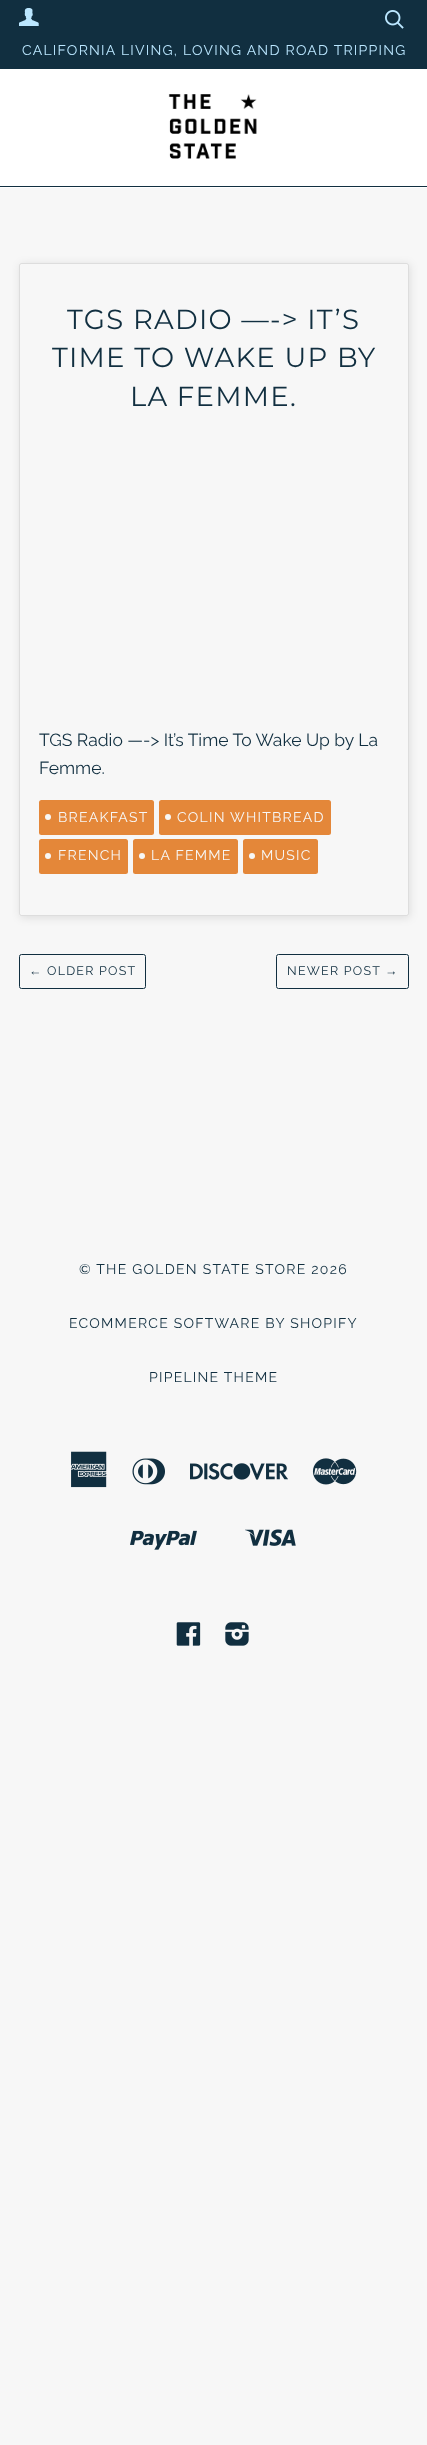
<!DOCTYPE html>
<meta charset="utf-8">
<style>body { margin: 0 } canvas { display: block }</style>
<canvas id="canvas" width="427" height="2445"></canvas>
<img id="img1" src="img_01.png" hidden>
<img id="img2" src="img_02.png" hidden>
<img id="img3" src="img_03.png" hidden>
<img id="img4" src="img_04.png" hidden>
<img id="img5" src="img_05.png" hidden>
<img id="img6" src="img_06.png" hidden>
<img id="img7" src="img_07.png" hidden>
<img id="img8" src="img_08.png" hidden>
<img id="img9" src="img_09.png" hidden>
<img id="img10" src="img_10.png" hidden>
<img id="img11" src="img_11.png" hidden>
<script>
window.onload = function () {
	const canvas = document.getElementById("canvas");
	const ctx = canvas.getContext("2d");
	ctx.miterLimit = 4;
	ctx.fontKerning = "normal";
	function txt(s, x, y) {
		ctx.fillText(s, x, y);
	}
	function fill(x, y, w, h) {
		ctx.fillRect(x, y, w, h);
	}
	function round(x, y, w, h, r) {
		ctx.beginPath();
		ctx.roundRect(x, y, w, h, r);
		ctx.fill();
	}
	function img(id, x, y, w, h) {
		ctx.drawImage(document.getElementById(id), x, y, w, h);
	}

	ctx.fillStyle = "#F7F7F7";
	fill(0, 0, 427, 2445);
	ctx.fillStyle = "#112F40";
	fill(0, 0, 427, 69);
	img("img1", 19, 8, 20, 18);
	img("img2", 385, 10, 19, 19);
	ctx.fillStyle = "#FFFFFF";
	fill(0, 69, 427, 119);
	ctx.fillStyle = "#112F40";
	fill(0, 186, 427, 1);
	img("img3", 168, 94, 89, 65);
	ctx.save();
	ctx.beginPath();
	ctx.moveTo(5, 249);
	ctx.lineTo(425, 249);
	ctx.lineTo(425, 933);
	ctx.lineTo(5, 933);
	ctx.closePath();
	ctx.moveTo(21.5, 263);
	ctx.lineTo(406.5, 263);
	ctx.bezierCurveTo(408, 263, 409, 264, 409, 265.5);
	ctx.lineTo(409, 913.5);
	ctx.bezierCurveTo(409, 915, 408, 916, 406.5, 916);
	ctx.lineTo(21.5, 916);
	ctx.bezierCurveTo(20, 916, 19, 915, 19, 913.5);
	ctx.lineTo(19, 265.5);
	ctx.bezierCurveTo(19, 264, 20, 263, 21.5, 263);
	ctx.closePath();
	ctx.clip("evenodd");
	ctx.fillStyle = "rgba(0, 0, 0, 0.1)";
	ctx.filter = "blur(4.5px)";
	ctx.beginPath();
	ctx.roundRect(20, 264, 390, 654, 2.5);
	ctx.fill();
	ctx.filter = "none";
	ctx.restore();
	ctx.beginPath();
	ctx.roundRect(19.5, 263.5, 389, 652, 2);
	ctx.strokeStyle = "rgba(0, 0, 0, 0.1)";
	ctx.stroke();
	ctx.fillStyle = "#E48739";
	round(39, 800, 115, 35, 2.5);
	ctx.fillStyle = "#F7F7F7";
	ctx.beginPath();
	ctx.arc(48, 817, 3, 0, Math.PI * 2);
	ctx.fill();
	ctx.fillStyle = "#E48739";
	round(159, 800, 172, 35, 2.5);
	ctx.fillStyle = "#F7F7F7";
	ctx.beginPath();
	ctx.arc(168, 817, 3, 0, Math.PI * 2);
	ctx.fill();
	ctx.fillStyle = "#E48739";
	round(39, 839, 89, 35, 2.5);
	ctx.fillStyle = "#F7F7F7";
	ctx.beginPath();
	ctx.arc(48, 856, 3, 0, Math.PI * 2);
	ctx.fill();
	ctx.fillStyle = "#E48739";
	round(133, 839, 105, 35, 2.5);
	ctx.fillStyle = "#F7F7F7";
	ctx.beginPath();
	ctx.arc(142, 856, 3, 0, Math.PI * 2);
	ctx.fill();
	ctx.fillStyle = "#E48739";
	round(243, 839, 75, 35, 2.5);
	ctx.fillStyle = "#F7F7F7";
	ctx.beginPath();
	ctx.arc(252, 856, 3, 0, Math.PI * 2);
	ctx.fill();
	ctx.beginPath();
	ctx.roundRect(19.5, 954.5, 126, 34, 2);
	ctx.strokeStyle = "#112F40";
	ctx.stroke();
	ctx.beginPath();
	ctx.roundRect(276.5, 954.5, 132, 34, 2);
	ctx.stroke();
	img("img4", 71, 1451, 36, 37);
	img("img5", 132, 1458, 33, 27);
	img("img6", 190, 1463, 98, 17);
	img("img7", 312, 1458, 45, 27);
	img("img8", 130, 1530, 67, 20);
	img("img9", 245, 1529, 51, 17);
	img("img10", 176, 1622, 25, 24);
	img("img11", 225, 1622, 24, 24);
	ctx.letterSpacing = "1.25px";
	ctx.font = "14px Raleway";
	ctx.fillStyle = "#BBE7FF";
	txt("CALIFORNIA LIVING, LOVING AND ROAD TRIPPING", 22, 55);
	ctx.font = "100 27.5px Montserrat";
	ctx.fillStyle = "#112F40";
	txt("TGS RADIO —-> IT’S", 67, 329);
	txt("TIME TO WAKE UP BY", 52, 367);
	txt("LA FEMME.", 130, 406);
	ctx.letterSpacing = "0px";
	ctx.font = "17.5px Raleway";
	txt("TGS Radio —-> It’s Time To Wake Up by La", 39, 746);
	txt("Femme.", 39, 774);
	ctx.letterSpacing = "1.25px";
	ctx.font = "14px Raleway";
	ctx.fillStyle = "#F7F7F7";
	txt("BREAKFAST", 58, 822);
	txt("COLIN WHITBREAD", 177, 822);
	txt("FRENCH", 58, 860);
	txt("LA FEMME", 151, 860);
	txt("MUSIC", 261, 860);
	ctx.font = "12.5px Liberation Sans";
	ctx.fillStyle = "#112F40";
	txt("←", 29, 975);
	ctx.font = "12.5px Raleway";
	txt("OLDER POST", 47, 975);
	txt("NEWER POST", 287, 975);
	ctx.font = "12.5px Liberation Sans";
	txt("→", 385, 975);
	ctx.font = "14px Raleway";
	txt("© THE GOLDEN STATE STORE 2026", 79, 1274);
	txt("ECOMMERCE SOFTWARE BY SHOPIFY", 69, 1328);
	txt("PIPELINE THEME", 149, 1382);
};
</script>
